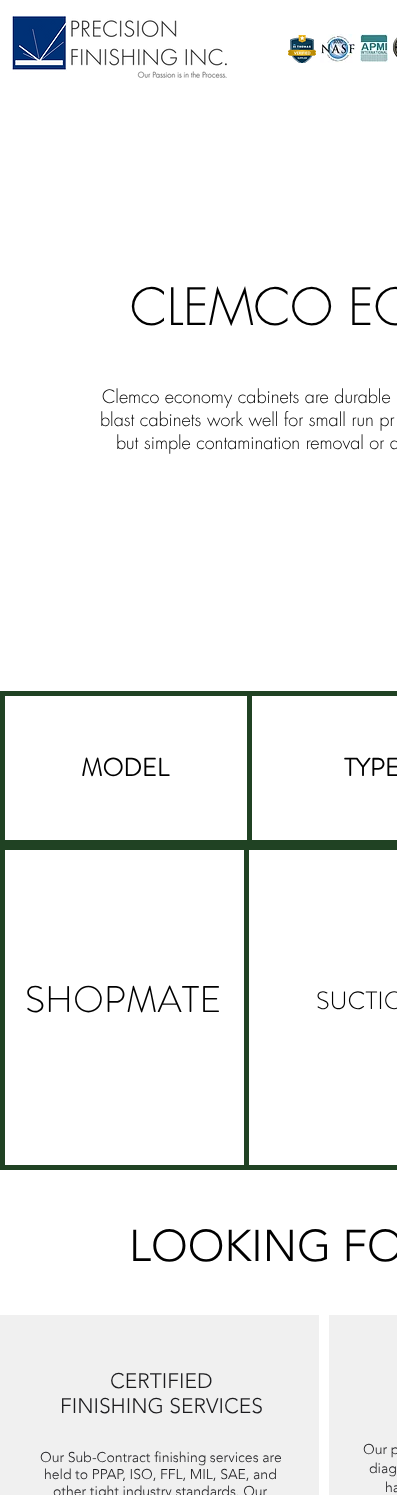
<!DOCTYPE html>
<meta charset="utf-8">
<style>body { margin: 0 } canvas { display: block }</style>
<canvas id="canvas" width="397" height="1495"></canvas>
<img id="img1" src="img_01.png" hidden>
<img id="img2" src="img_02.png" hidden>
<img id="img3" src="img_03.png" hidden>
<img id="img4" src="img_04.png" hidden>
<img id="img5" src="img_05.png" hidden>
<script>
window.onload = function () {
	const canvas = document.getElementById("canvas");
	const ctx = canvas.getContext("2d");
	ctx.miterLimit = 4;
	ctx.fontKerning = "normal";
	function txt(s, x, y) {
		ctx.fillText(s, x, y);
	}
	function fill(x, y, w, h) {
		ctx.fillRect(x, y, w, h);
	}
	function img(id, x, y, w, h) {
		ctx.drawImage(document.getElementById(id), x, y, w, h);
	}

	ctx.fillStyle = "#204223";
	fill(0, 0, 397, 1495);
	ctx.fillStyle = "#FFFFFF";
	fill(0, 0, 397, 691);
	img("img1", 12, 16, 215, 62);
	img("img2", 288, 35, 28, 28);
	img("img3", 320, 34, 36, 29);
	img("img4", 360, 34, 28, 29);
	img("img5", 392, 37, 5, 20);
	fill(5, 696, 242, 144);
	fill(252, 696, 145, 144);
	fill(5, 850, 239, 315);
	fill(249, 850, 148, 315);
	fill(0, 1170, 397, 325);
	ctx.fillStyle = "#F0F0F0";
	fill(0, 1315, 319, 180);
	fill(329, 1315, 68, 180);
	ctx.font = "300 50px futura";
	ctx.fillStyle = "#000000";
	txt("CLEMCO EC", 130, 325);
	ctx.font = "300 18px futura";
	txt("Clemco economy cabinets are durable", 102, 403);
	txt("blast cabinets work well for small run pr", 100, 426);
	txt("but simple contamination removal or a", 116, 449);
	ctx.font = "bold 25px 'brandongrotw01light'";
	txt("MODEL", 81, 776);
	txt("TYPE", 344, 776);
	ctx.font = "300 37px 'brandongrotw01light'";
	txt("SHOPMATE", 25, 1012);
	ctx.font = "300 25px 'brandongrotw01light'";
	txt("SUCTIO", 316, 1009);
	ctx.font = "300 44px 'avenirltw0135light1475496'";
	txt("LOOKING FO", 129, 1261);
	ctx.font = "300 21px 'avenirltw0135light1475496'";
	ctx.fillStyle = "#1B1B1E";
	txt("CERTIFIED", 110, 1388);
	txt("FINISHING SERVICES", 60, 1413);
	ctx.font = "300 14px 'avenirltw0135light1475496'";
	txt("Our Sub-Contract finishing services are", 40, 1462);
	txt("held to PPAP, ISO, FFL, MIL, SAE, and", 44, 1479);
	txt("other tight industry standards. Our", 53, 1496);
	txt("Our p", 363, 1454);
	txt("diag", 369, 1473);
	txt("ha", 385, 1492);
};
</script>
